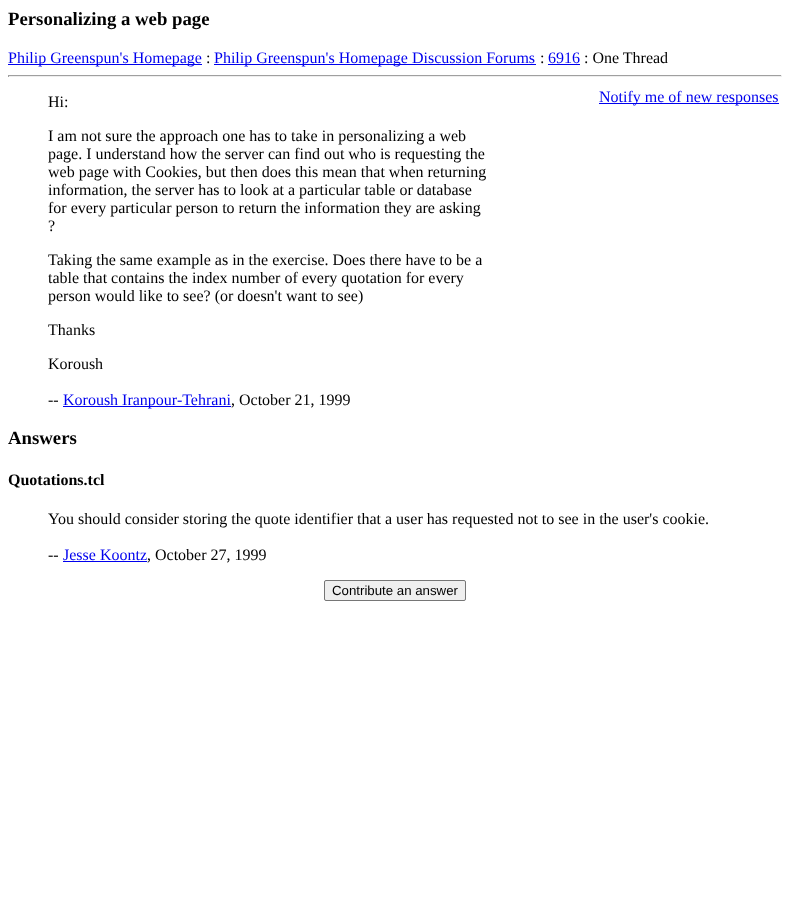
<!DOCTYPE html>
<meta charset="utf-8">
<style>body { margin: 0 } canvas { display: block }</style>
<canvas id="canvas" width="790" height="911"></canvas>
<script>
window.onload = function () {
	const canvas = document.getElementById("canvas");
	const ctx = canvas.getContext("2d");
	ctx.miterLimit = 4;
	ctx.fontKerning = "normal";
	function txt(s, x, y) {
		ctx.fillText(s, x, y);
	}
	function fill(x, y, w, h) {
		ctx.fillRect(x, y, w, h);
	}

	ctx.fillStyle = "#FFFFFF";
	fill(0, 0, 790, 911);
	ctx.fillStyle = "#0000EE";
	fill(8, 64, 194, 1);
	fill(214, 64, 322, 1);
	fill(548, 64, 32, 1);
	ctx.fillStyle = "#9F9F9F";
	fill(8, 75, 774, 1);
	ctx.fillStyle = "#EEEEEE";
	fill(781, 75, 1, 2);
	fill(8, 76, 774, 1);
	ctx.fillStyle = "#9F9F9F";
	fill(8, 75, 1, 2);
	ctx.fillStyle = "#0000EE";
	fill(63, 406, 168, 1);
	fill(599, 103, 180, 1);
	fill(63, 561, 84, 1);
	ctx.fillStyle = "#EFEFEF";
	ctx.beginPath();
	ctx.roundRect(324.5, 580.5, 141, 20, 1.5);
	ctx.fill();
	ctx.strokeStyle = "#767676";
	ctx.stroke();
	ctx.font = "bold 18.75px Liberation Serif";
	ctx.fillStyle = "#000000";
	txt("Personalizing a web page", 8, 25);
	ctx.font = "16px Liberation Serif";
	ctx.fillStyle = "#0000EE";
	txt("Philip Greenspun's Homepage", 8, 63);
	ctx.fillStyle = "#000000";
	txt(":", 206, 63);
	ctx.fillStyle = "#0000EE";
	txt("Philip Greenspun's Homepage Discussion Forums", 214, 63);
	ctx.fillStyle = "#000000";
	txt(":", 540, 63);
	ctx.fillStyle = "#0000EE";
	txt("6916", 548, 63);
	ctx.fillStyle = "#000000";
	txt(": One Thread", 584, 63);
	txt("Hi:", 48, 107);
	txt("I am not sure the approach one has to take in personalizing a web", 48, 141);
	txt("page. I understand how the server can find out who is requesting the", 48, 159);
	txt("web page with Cookies, but then does this mean that when returning", 48, 177);
	txt("information, the server has to look at a particular table or database", 48, 195);
	txt("for every particular person to return the information they are asking", 48, 213);
	txt("?", 48, 231);
	txt("Taking the same example as in the exercise. Does there have to be a", 48, 265);
	txt("table that contains the index number of every quotation for every", 48, 283);
	txt("person would like to see? (or doesn't want to see)", 48, 301);
	txt("Thanks", 48, 335);
	txt("Koroush", 48, 369);
	txt("--", 48, 405);
	ctx.fillStyle = "#0000EE";
	txt("Koroush Iranpour-Tehrani", 63, 405);
	ctx.fillStyle = "#000000";
	txt(", October 21, 1999", 231, 405);
	ctx.fillStyle = "#0000EE";
	txt("Notify me of new responses", 599, 102);
	ctx.font = "bold 18.75px Liberation Serif";
	ctx.fillStyle = "#000000";
	txt("Answers", 8, 444);
	ctx.font = "bold 16px Liberation Serif";
	txt("Quotations.tcl", 8, 485);
	ctx.font = "16px Liberation Serif";
	txt("You should consider storing the quote identifier that a user has requested not to see in the user's cookie.", 48, 524);
	txt("--", 48, 560);
	ctx.fillStyle = "#0000EE";
	txt("Jesse Koontz", 63, 560);
	ctx.fillStyle = "#000000";
	txt(", October 27, 1999", 147, 560);
	ctx.font = "13.25px Liberation Sans";
	txt("Contribute an answer", 332, 595);
};
</script>
